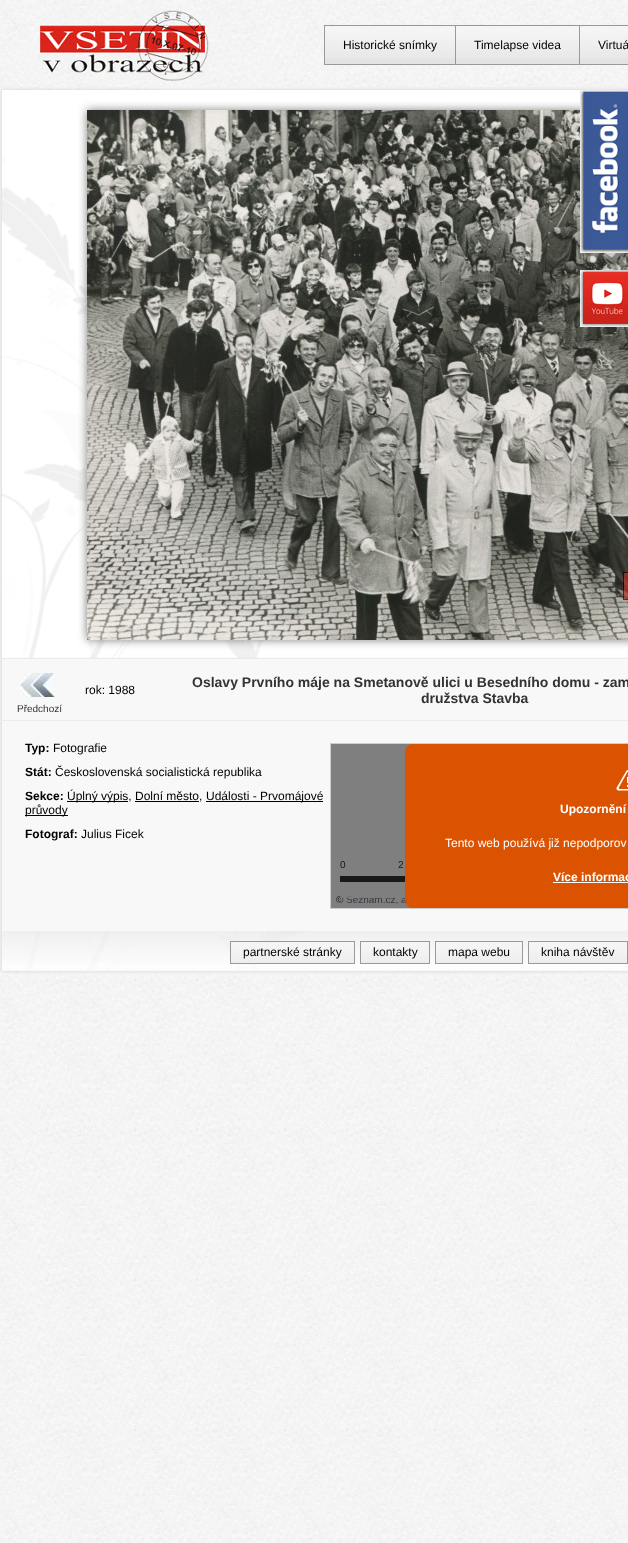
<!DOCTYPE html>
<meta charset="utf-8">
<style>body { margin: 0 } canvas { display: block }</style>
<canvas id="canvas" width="628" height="1543"></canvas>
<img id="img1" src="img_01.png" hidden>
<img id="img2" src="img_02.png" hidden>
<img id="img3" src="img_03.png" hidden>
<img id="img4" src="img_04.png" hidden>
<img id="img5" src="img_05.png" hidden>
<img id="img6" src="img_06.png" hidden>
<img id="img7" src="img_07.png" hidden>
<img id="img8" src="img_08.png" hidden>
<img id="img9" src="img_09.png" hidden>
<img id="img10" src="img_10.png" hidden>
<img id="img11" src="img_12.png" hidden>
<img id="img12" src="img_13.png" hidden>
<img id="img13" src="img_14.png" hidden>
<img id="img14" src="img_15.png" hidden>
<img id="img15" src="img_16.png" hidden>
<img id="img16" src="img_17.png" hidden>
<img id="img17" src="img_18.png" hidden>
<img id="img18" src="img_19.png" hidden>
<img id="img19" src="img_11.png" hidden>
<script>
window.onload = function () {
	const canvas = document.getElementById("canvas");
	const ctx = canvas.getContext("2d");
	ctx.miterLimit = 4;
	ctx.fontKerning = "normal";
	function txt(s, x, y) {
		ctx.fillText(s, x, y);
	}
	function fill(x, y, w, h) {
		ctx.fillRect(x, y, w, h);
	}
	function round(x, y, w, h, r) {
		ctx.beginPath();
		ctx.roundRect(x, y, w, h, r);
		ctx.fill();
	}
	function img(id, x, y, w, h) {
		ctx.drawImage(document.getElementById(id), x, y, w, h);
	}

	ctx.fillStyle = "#FFFFFF";
	fill(0, 0, 628, 1543);
	img("img1", 0, 0, 628, 1543);
	img("img2", 1, 87, 627, 3);
	img("img3", 40, 10, 169, 72);
	ctx.fillStyle = "#999999";
	fill(324, 25, 1, 40);
	fill(325, 25, 303, 1);
	fill(455, 25, 1, 40);
	fill(325, 64, 131, 1);
	ctx.fillStyle = "#E3E3E3";
	fill(325, 59, 130, 5);
	img("img4", 325, 26, 130, 33);
	ctx.fillStyle = "#999999";
	fill(579, 25, 1, 40);
	fill(456, 64, 172, 1);
	ctx.fillStyle = "#E3E3E3";
	fill(456, 59, 123, 5);
	img("img5", 456, 26, 123, 33);
	fill(580, 59, 48, 5);
	img("img6", 580, 26, 48, 33);
	img("img7", 0, 90, 580, 881);
	img("img8", 2, 142, 626, 829);
	ctx.fillStyle = "#808080";
	ctx.filter = "blur(5px)";
	ctx.beginPath();
	ctx.rect(87, 110, 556, 530);
	ctx.fill();
	ctx.filter = "none";
	img("img9", 87, 110, 541, 530);
	img("img10", 20, 673, 35, 24);
	ctx.fillStyle = "#EBEBEB";
	fill(0, 720, 628, 1);
	ctx.fillStyle = "#000000";
	fill(67, 801, 61, 1);
	fill(206, 801, 117, 1);
	fill(135, 801, 64, 1);
	fill(25, 815, 43, 1);
	ctx.fillStyle = "#FFFFFF";
	fill(331, 744, 82, 164);
	ctx.strokeStyle = "#CCCCCC";
	ctx.strokeRect(330.5, 743.5, 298, 165);
	ctx.fillStyle = "#333333";
	fill(340, 876, 69, 6);
	img("img11", 2, 931, 626, 39);
	img("img12", 0, 971, 628, 3);
	img("img13", 231, 942, 123, 21);
	ctx.strokeStyle = "#999999";
	ctx.strokeRect(230.5, 941.5, 124, 22);
	img("img14", 361, 942, 68, 21);
	ctx.strokeRect(360.5, 941.5, 69, 22);
	img("img15", 436, 942, 86, 21);
	ctx.strokeRect(435.5, 941.5, 87, 22);
	img("img16", 529, 942, 98, 21);
	ctx.strokeRect(528.5, 941.5, 99, 22);
	img("img17", 580, 90, 48, 163);
	img("img18", 580, 270, 48, 57);
	ctx.font = "12px Liberation Sans";
	ctx.fillStyle = "#000000";
	txt("Historické snímky", 343, 49);
	txt("Timelapse videa", 474, 49);
	txt("Virtuá", 598, 49);
	txt("rok: 1988", 85, 694);
	ctx.font = "bold 14px Liberation Sans";
	ctx.fillStyle = "#333333";
	txt("Oslavy Prvního máje na Smetanově ulici u Besedního domu - zam", 192, 687);
	txt("družstva Stavba", 421, 703);
	ctx.font = "10px Liberation Sans";
	txt("Předchozí", 17, 712);
	ctx.font = "bold 12px Liberation Sans";
	ctx.fillStyle = "#000000";
	txt("Typ:", 25, 752);
	ctx.font = "12px Liberation Sans";
	txt("Fotografie", 53, 752);
	ctx.font = "bold 12px Liberation Sans";
	txt("Stát:", 25, 776);
	ctx.font = "12px Liberation Sans";
	txt("Československá socialistická republika", 55, 776);
	ctx.font = "bold 12px Liberation Sans";
	txt("Sekce:", 25, 800);
	ctx.font = "12px Liberation Sans";
	txt("Úplný výpis, Dolní město,", 67, 800);
	txt("Události - Prvomájové", 206, 800);
	txt("průvody", 25, 814);
	ctx.font = "bold 12px Liberation Sans";
	txt("Fotograf:", 25, 838);
	ctx.font = "12px Liberation Sans";
	txt("Julius Ficek", 81, 838);
	ctx.font = "10px Liberation Sans";
	ctx.fillStyle = "#333333";
	txt("0", 340, 868);
	txt("2", 398, 868);
	txt("©", 336, 903);
	ctx.fillStyle = "#6B7580";
	txt("Seznam.cz, a", 346, 903);
	ctx.fillStyle = "rgba(255, 255, 255, 0.8)";
	fill(340, 896, 69, 2);
	ctx.fillStyle = "rgba(0, 0, 0, 0.5)";
	fill(331, 744, 82, 164);
	ctx.fillStyle = "#DB5200";
	round(405, 744, 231, 164, 8);
	img("img19", 616, 770, 12, 21);
	ctx.font = "bold 12px Liberation Sans";
	ctx.fillStyle = "#FFFFFF";
	txt("Upozornění", 560, 813);
	ctx.font = "12px Liberation Sans";
	txt("Tento web používá již nepodporov", 445, 847);
	ctx.font = "bold 12px Liberation Sans";
	txt("Více informac", 553, 881);
	fill(553, 882, 75, 1);
	ctx.font = "12px Liberation Sans";
	ctx.fillStyle = "#000000";
	txt("partnerské stránky", 243, 956);
	txt("kontakty", 373, 956);
	txt("mapa webu", 448, 956);
	txt("kniha návštěv", 541, 956);
};
</script>
